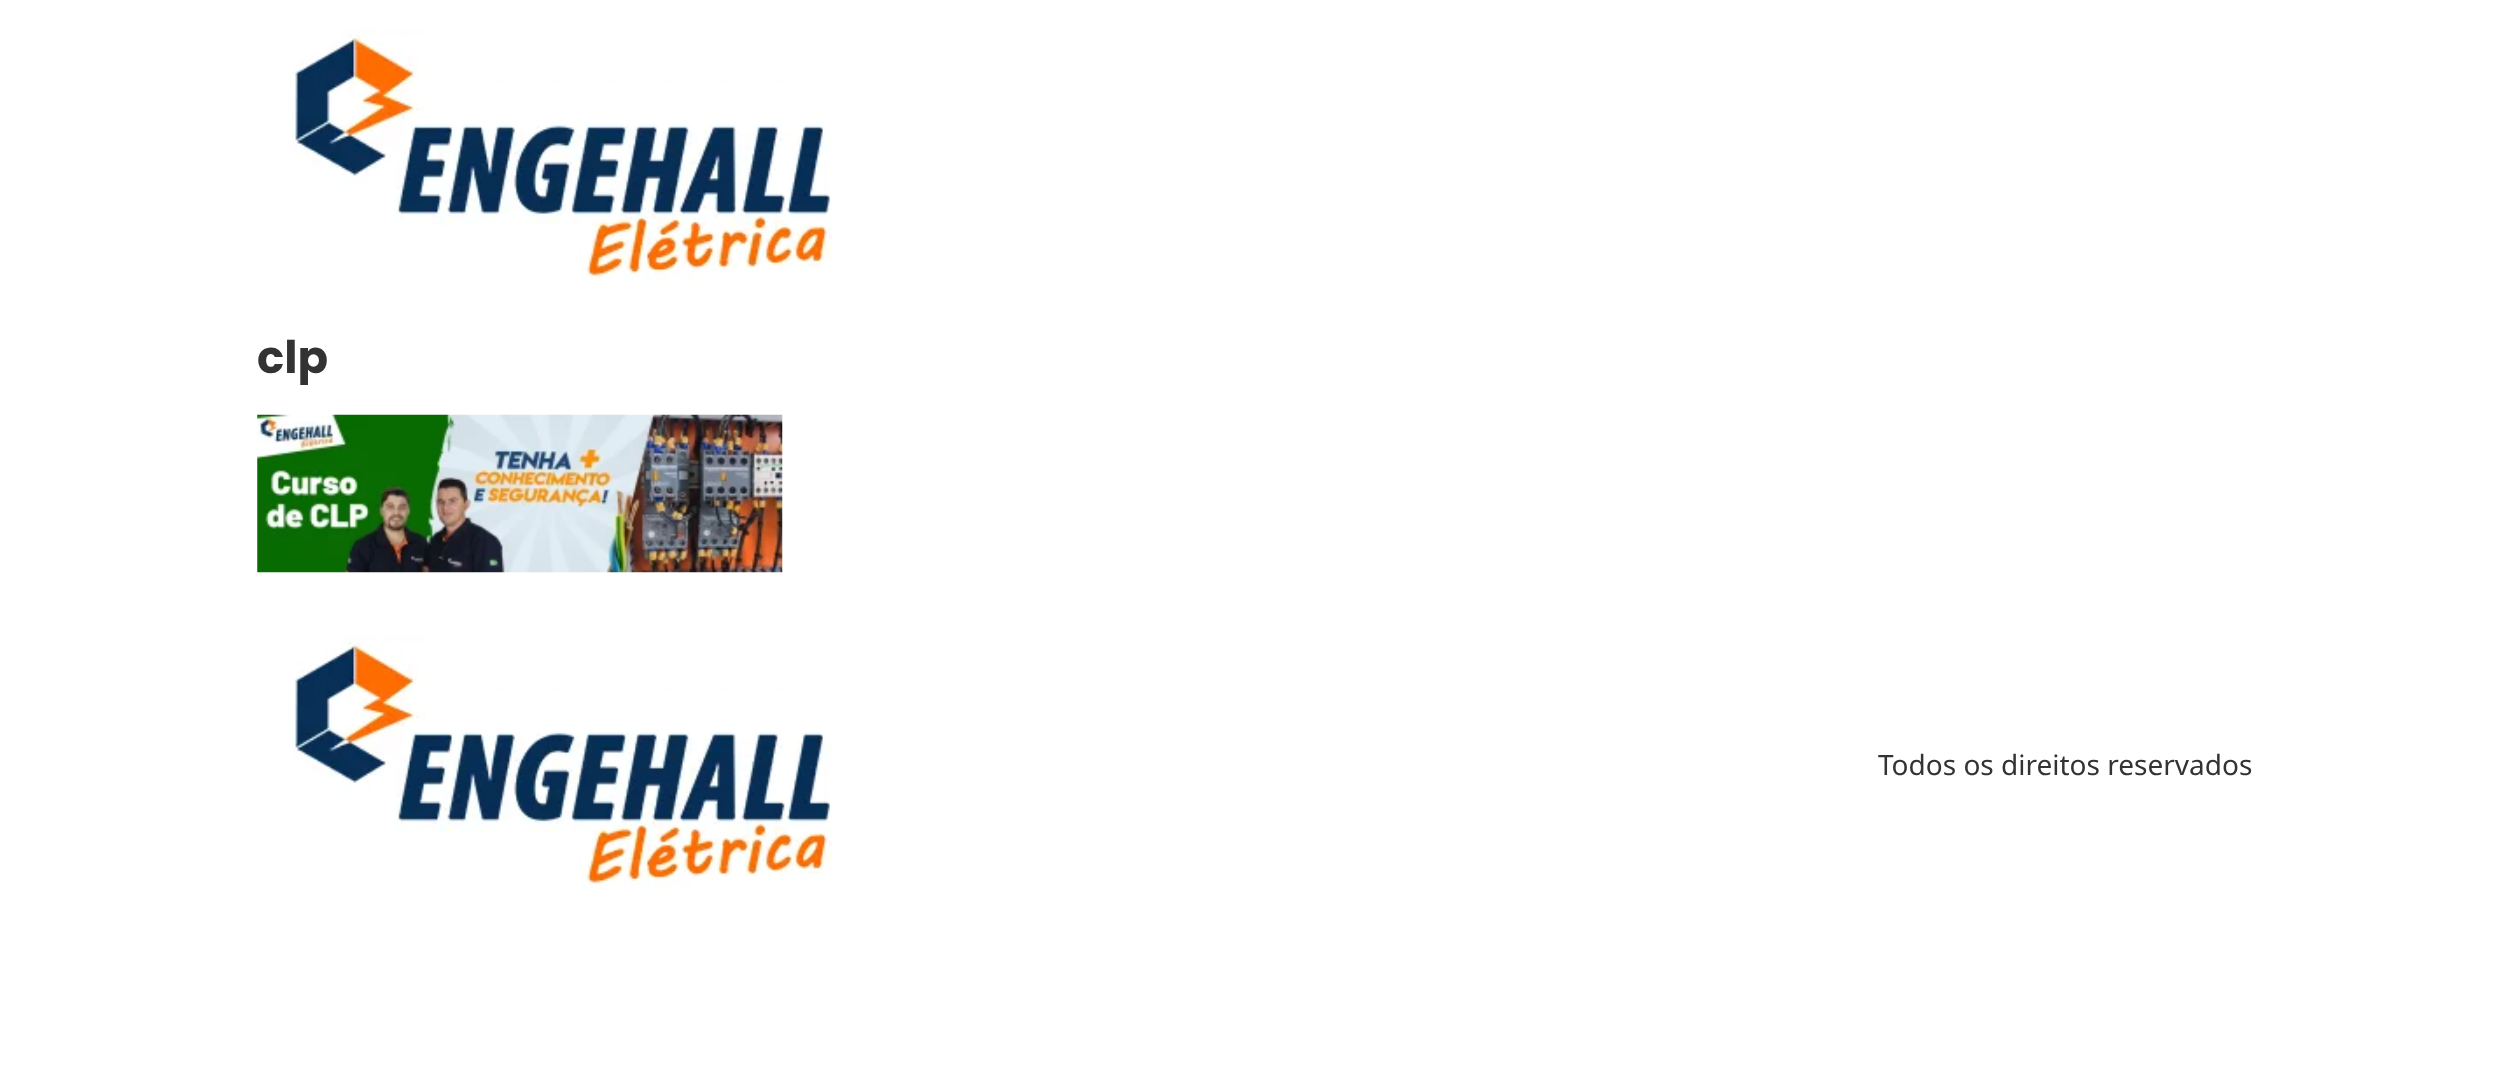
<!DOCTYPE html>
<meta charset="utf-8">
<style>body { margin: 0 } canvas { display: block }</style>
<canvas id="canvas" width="2508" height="1078"></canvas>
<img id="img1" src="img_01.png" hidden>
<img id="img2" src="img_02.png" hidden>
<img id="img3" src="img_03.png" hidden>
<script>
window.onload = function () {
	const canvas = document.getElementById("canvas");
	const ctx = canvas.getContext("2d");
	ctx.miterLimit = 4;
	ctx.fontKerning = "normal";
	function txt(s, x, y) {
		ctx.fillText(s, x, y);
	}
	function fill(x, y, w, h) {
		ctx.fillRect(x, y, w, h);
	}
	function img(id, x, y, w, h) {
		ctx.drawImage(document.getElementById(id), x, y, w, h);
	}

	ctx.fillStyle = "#FFFFFF";
	fill(0, 0, 2508, 1078);
	img("img1", 292, 28, 541, 253);
	img("img2", 257, 414, 526, 159);
	img("img3", 293, 635, 540, 253);
	ctx.font = "bold 45px Poppins";
	ctx.fillStyle = "#333333";
	txt("clp", 257, 373);
	ctx.font = "28px Noto Sans";
	txt("Todos os direitos reservados", 1878, 775);
};
</script>
